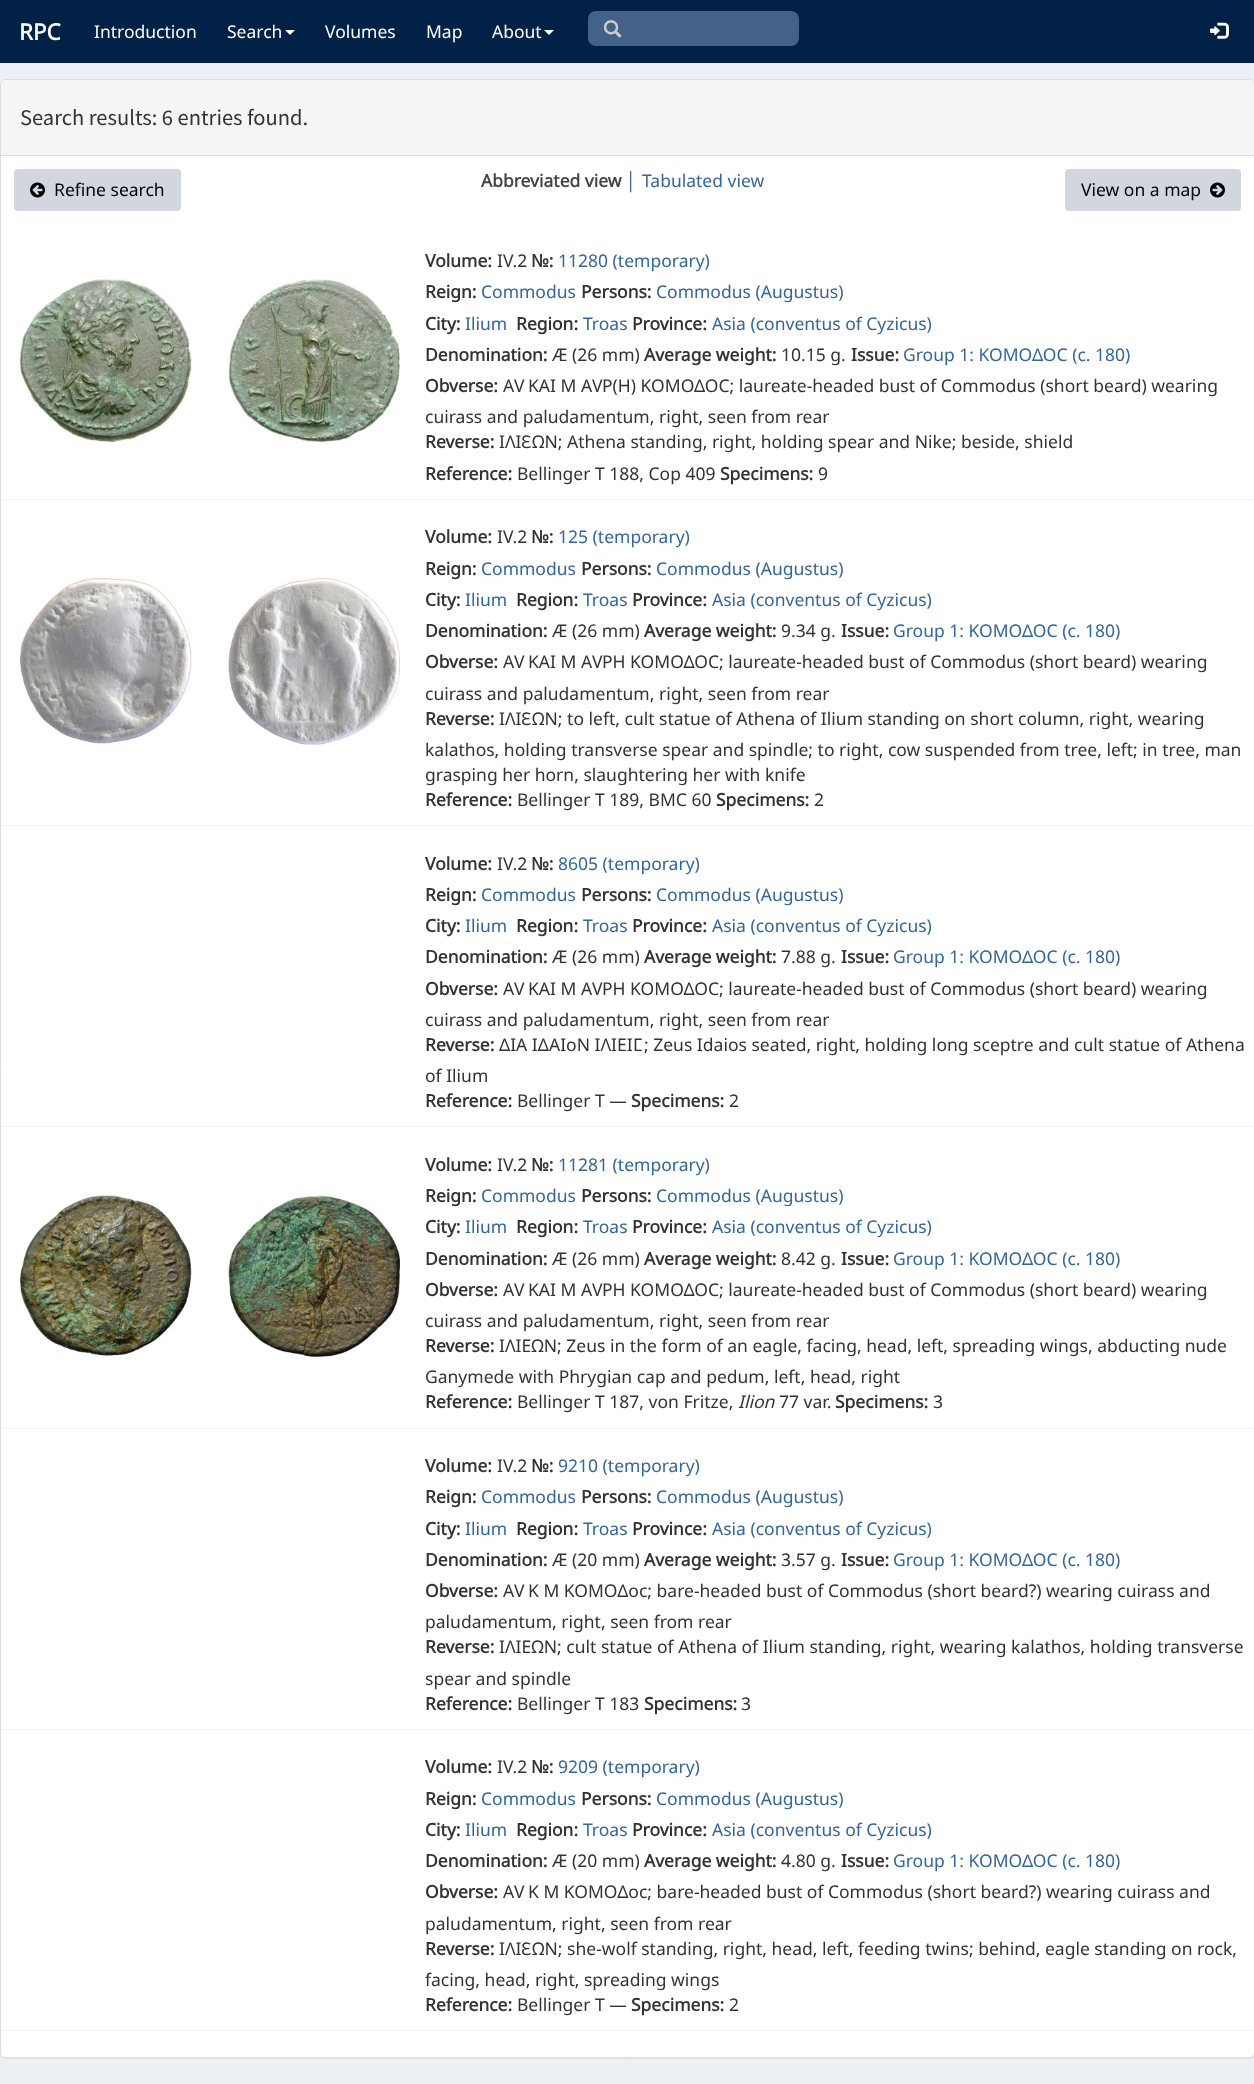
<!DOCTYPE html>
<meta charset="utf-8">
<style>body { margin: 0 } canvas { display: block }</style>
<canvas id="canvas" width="1254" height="2084"></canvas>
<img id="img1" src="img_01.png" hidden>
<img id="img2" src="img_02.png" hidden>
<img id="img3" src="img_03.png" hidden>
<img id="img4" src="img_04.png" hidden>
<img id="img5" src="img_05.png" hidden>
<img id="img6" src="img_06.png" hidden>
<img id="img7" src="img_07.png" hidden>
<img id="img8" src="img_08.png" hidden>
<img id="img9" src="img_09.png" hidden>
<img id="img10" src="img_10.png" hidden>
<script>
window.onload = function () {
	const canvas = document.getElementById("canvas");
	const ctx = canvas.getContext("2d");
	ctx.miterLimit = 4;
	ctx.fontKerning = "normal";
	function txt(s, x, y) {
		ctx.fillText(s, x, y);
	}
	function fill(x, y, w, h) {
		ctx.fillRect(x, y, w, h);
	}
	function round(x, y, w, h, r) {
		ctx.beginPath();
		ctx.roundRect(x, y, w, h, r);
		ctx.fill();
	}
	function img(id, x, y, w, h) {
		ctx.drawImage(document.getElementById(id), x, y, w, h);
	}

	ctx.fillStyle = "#ECF0F5";
	fill(0, 0, 1254, 2084);
	ctx.fillStyle = "#012147";
	fill(0, 0, 1254, 63);
	ctx.fillStyle = "#FFFFFF";
	ctx.beginPath();
	ctx.moveTo(285, 30);
	ctx.lineTo(295, 30);
	ctx.lineTo(290, 35);
	ctx.closePath();
	ctx.fill();
	ctx.beginPath();
	ctx.moveTo(544, 30);
	ctx.lineTo(554, 30);
	ctx.lineTo(549, 35);
	ctx.closePath();
	ctx.fill();
	ctx.fillStyle = "#446187";
	round(588, 11, 211, 35, 8);
	img("img1", 604, 20, 18, 18);
	img("img2", 1210, 22, 19, 17);
	ctx.fillStyle = "rgba(0, 0, 0, 0.05)";
	ctx.filter = "blur(0.5px)";
	ctx.beginPath();
	ctx.roundRect(0, 80, 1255, 1979, 5);
	ctx.fill();
	ctx.filter = "none";
	ctx.fillStyle = "#FFFFFF";
	ctx.beginPath();
	ctx.roundRect(0.5, 79.5, 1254, 1978, 4.5);
	ctx.fill();
	ctx.strokeStyle = "#DDDDDD";
	ctx.stroke();
	ctx.fillStyle = "#F5F5F5";
	ctx.beginPath();
	ctx.roundRect(1, 80, 1253, 76, [4, 4, 0, 0]);
	ctx.fill();
	ctx.fillStyle = "#DDDDDD";
	fill(1, 155, 1253, 1);
	ctx.fillStyle = "#D2D6DE";
	round(14, 169, 167, 42, 4);
	img("img3", 30, 182, 15, 16);
	round(1065, 169, 176, 42, 4);
	img("img4", 1210, 182, 15, 16);
	img("img5", 20, 279, 172, 163);
	img("img6", 228, 279, 172, 163);
	img("img7", 20, 578, 172, 166);
	img("img8", 228, 578, 172, 167);
	ctx.fillStyle = "#F4F4F4";
	fill(1, 499, 1253, 1);
	fill(1, 825, 1253, 1);
	img("img9", 20, 1195, 172, 161);
	img("img10", 228, 1195, 172, 162);
	fill(1, 1126, 1253, 1);
	fill(1, 1428, 1253, 1);
	fill(1, 1729, 1253, 1);
	fill(1, 2030, 1253, 1);
	ctx.font = "bold 22.5px Noto Sans";
	ctx.fillStyle = "#FFFFFF";
	txt("RPC", 19, 40);
	ctx.font = "17.5px Noto Sans";
	txt("Introduction", 94, 38);
	txt("Search", 227, 38);
	txt("Volumes", 325, 38);
	txt("Map", 426, 38);
	txt("About", 492, 38);
	ctx.font = "22.5px Source Sans Pro";
	ctx.fillStyle = "#333333";
	txt("Search results: 6 entries found.", 20, 125);
	ctx.font = "bold 17.5px Noto Sans";
	ctx.fillStyle = "#444444";
	txt("Abbreviated view", 481, 187);
	ctx.font = "17.5px Liberation Sans";
	ctx.fillStyle = "#336699";
	txt("│", 626, 187);
	ctx.font = "17.5px Noto Sans";
	txt("Tabulated view", 642, 187);
	ctx.fillStyle = "#000000";
	txt("Refine search", 54, 196);
	txt("View on a map", 1081, 196);
	ctx.font = "bold 17.5px Noto Sans";
	ctx.fillStyle = "#333333";
	txt("Volume:", 425, 267);
	ctx.font = "17.5px Noto Sans";
	txt("IV.2", 497, 267);
	ctx.font = "bold 17.5px Noto Sans";
	txt("№:", 531, 267);
	ctx.font = "17.5px Noto Sans";
	ctx.fillStyle = "#336699";
	txt("11280 (temporary)", 558, 267);
	ctx.font = "bold 17.5px Noto Sans";
	ctx.fillStyle = "#333333";
	txt("Reign:", 425, 298);
	ctx.font = "17.5px Noto Sans";
	ctx.fillStyle = "#336699";
	txt("Commodus", 481, 298);
	ctx.font = "bold 17.5px Noto Sans";
	ctx.fillStyle = "#333333";
	txt("Persons:", 581, 298);
	ctx.font = "17.5px Noto Sans";
	ctx.fillStyle = "#336699";
	txt("Commodus (Augustus)", 656, 298);
	ctx.font = "bold 17.5px Noto Sans";
	ctx.fillStyle = "#333333";
	txt("City:", 425, 330);
	ctx.font = "17.5px Noto Sans";
	ctx.fillStyle = "#336699";
	txt("Ilium", 465, 330);
	ctx.font = "bold 17.5px Noto Sans";
	ctx.fillStyle = "#333333";
	txt("Region:", 516, 330);
	ctx.font = "17.5px Noto Sans";
	ctx.fillStyle = "#336699";
	txt("Troas", 583, 330);
	ctx.font = "bold 17.5px Noto Sans";
	ctx.fillStyle = "#333333";
	txt("Province:", 632, 330);
	ctx.font = "17.5px Noto Sans";
	ctx.fillStyle = "#336699";
	txt("Asia (conventus of Cyzicus)", 712, 330);
	ctx.font = "bold 17.5px Noto Sans";
	ctx.fillStyle = "#333333";
	txt("Denomination:", 425, 361);
	ctx.font = "17.5px Noto Sans";
	txt("Æ (26 mm)", 552, 361);
	ctx.font = "bold 17.5px Noto Sans";
	txt("Average weight:", 644, 361);
	ctx.font = "17.5px Noto Sans";
	txt("10.15 g.", 781, 361);
	ctx.font = "bold 17.5px Noto Sans";
	txt("Issue:", 851, 361);
	ctx.font = "17.5px Noto Sans";
	ctx.fillStyle = "#336699";
	txt("Group 1: ΚΟΜΟΔΟС (c. 180)", 903, 361);
	ctx.font = "bold 17.5px Noto Sans";
	ctx.fillStyle = "#333333";
	txt("Obverse:", 425, 392);
	ctx.font = "17.5px Noto Sans";
	txt("Α", 503, 392);
	ctx.font = "17.5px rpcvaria";
	txt("Υ", 514, 392);
	ctx.font = "17.5px Noto Sans";
	txt("ΚΑΙ Μ Α", 528, 392);
	ctx.font = "17.5px rpcvaria";
	txt("Υ", 592, 392);
	ctx.font = "17.5px Noto Sans";
	txt("Ρ(Η) ΚΟΜΟΔΟϹ; laureate-headed bust of Commodus (short beard) wearing", 602, 392);
	txt("cuirass and paludamentum, right, seen from rear", 425, 423);
	ctx.font = "bold 17.5px Noto Sans";
	txt("Reverse:", 425, 448);
	ctx.font = "17.5px Noto Sans";
	txt("ΙΛΙ", 499, 448);
	ctx.font = "17.5px rpcvaria";
	txt("Ε", 521, 448);
	ctx.font = "17.5px Noto Sans";
	txt("ΩΝ; Athena standing, right, holding spear and Nike; beside, shield", 532, 448);
	ctx.font = "bold 17.5px Noto Sans";
	txt("Reference:", 425, 480);
	ctx.font = "17.5px Noto Sans";
	txt("Bellinger T 188, Cop 409", 517, 480);
	ctx.font = "bold 17.5px Noto Sans";
	txt("Specimens:", 720, 480);
	ctx.font = "17.5px Noto Sans";
	txt("9", 818, 480);
	ctx.font = "bold 17.5px Noto Sans";
	txt("Volume:", 425, 543);
	ctx.font = "17.5px Noto Sans";
	txt("IV.2", 497, 543);
	ctx.font = "bold 17.5px Noto Sans";
	txt("№:", 531, 543);
	ctx.font = "17.5px Noto Sans";
	ctx.fillStyle = "#336699";
	txt("125 (temporary)", 558, 543);
	ctx.font = "bold 17.5px Noto Sans";
	ctx.fillStyle = "#333333";
	txt("Reign:", 425, 575);
	ctx.font = "17.5px Noto Sans";
	ctx.fillStyle = "#336699";
	txt("Commodus", 481, 575);
	ctx.font = "bold 17.5px Noto Sans";
	ctx.fillStyle = "#333333";
	txt("Persons:", 581, 575);
	ctx.font = "17.5px Noto Sans";
	ctx.fillStyle = "#336699";
	txt("Commodus (Augustus)", 656, 575);
	ctx.font = "bold 17.5px Noto Sans";
	ctx.fillStyle = "#333333";
	txt("City:", 425, 606);
	ctx.font = "17.5px Noto Sans";
	ctx.fillStyle = "#336699";
	txt("Ilium", 465, 606);
	ctx.font = "bold 17.5px Noto Sans";
	ctx.fillStyle = "#333333";
	txt("Region:", 516, 606);
	ctx.font = "17.5px Noto Sans";
	ctx.fillStyle = "#336699";
	txt("Troas", 583, 606);
	ctx.font = "bold 17.5px Noto Sans";
	ctx.fillStyle = "#333333";
	txt("Province:", 632, 606);
	ctx.font = "17.5px Noto Sans";
	ctx.fillStyle = "#336699";
	txt("Asia (conventus of Cyzicus)", 712, 606);
	ctx.font = "bold 17.5px Noto Sans";
	ctx.fillStyle = "#333333";
	txt("Denomination:", 425, 637);
	ctx.font = "17.5px Noto Sans";
	txt("Æ (26 mm)", 552, 637);
	ctx.font = "bold 17.5px Noto Sans";
	txt("Average weight:", 644, 637);
	ctx.font = "17.5px Noto Sans";
	txt("9.34 g.", 781, 637);
	ctx.font = "bold 17.5px Noto Sans";
	txt("Issue:", 841, 637);
	ctx.font = "17.5px Noto Sans";
	ctx.fillStyle = "#336699";
	txt("Group 1: ΚΟΜΟΔΟС (c. 180)", 893, 637);
	ctx.font = "bold 17.5px Noto Sans";
	ctx.fillStyle = "#333333";
	txt("Obverse:", 425, 668);
	ctx.font = "17.5px Noto Sans";
	txt("Α", 503, 668);
	ctx.font = "17.5px rpcvaria";
	txt("Υ", 514, 668);
	ctx.font = "17.5px Noto Sans";
	txt("ΚΑΙ Μ Α", 528, 668);
	ctx.font = "17.5px rpcvaria";
	txt("Υ", 592, 668);
	ctx.font = "17.5px Noto Sans";
	txt("ΡΗ ΚΟΜΟΔΟϹ; laureate-headed bust of Commodus (short beard) wearing", 602, 668);
	txt("cuirass and paludamentum, right, seen from rear", 425, 700);
	ctx.font = "bold 17.5px Noto Sans";
	txt("Reverse:", 425, 725);
	ctx.font = "17.5px Noto Sans";
	txt("ΙΛΙ", 499, 725);
	ctx.font = "17.5px rpcvaria";
	txt("Ε", 521, 725);
	ctx.font = "17.5px Noto Sans";
	txt("ΩΝ; to left, cult statue of Athena of Ilium standing on short column, right, wearing", 532, 725);
	txt("kalathos, holding transverse spear and spindle; to right, cow suspended from tree, left; in tree, man", 425, 756);
	txt("grasping her horn, slaughtering her with knife", 425, 781);
	ctx.font = "bold 17.5px Noto Sans";
	txt("Reference:", 425, 806);
	ctx.font = "17.5px Noto Sans";
	txt("Bellinger T 189, BMC 60", 517, 806);
	ctx.font = "bold 17.5px Noto Sans";
	txt("Specimens:", 716, 806);
	ctx.font = "17.5px Noto Sans";
	txt("2", 814, 806);
	ctx.font = "bold 17.5px Noto Sans";
	txt("Volume:", 425, 870);
	ctx.font = "17.5px Noto Sans";
	txt("IV.2", 497, 870);
	ctx.font = "bold 17.5px Noto Sans";
	txt("№:", 531, 870);
	ctx.font = "17.5px Noto Sans";
	ctx.fillStyle = "#336699";
	txt("8605 (temporary)", 558, 870);
	ctx.font = "bold 17.5px Noto Sans";
	ctx.fillStyle = "#333333";
	txt("Reign:", 425, 901);
	ctx.font = "17.5px Noto Sans";
	ctx.fillStyle = "#336699";
	txt("Commodus", 481, 901);
	ctx.font = "bold 17.5px Noto Sans";
	ctx.fillStyle = "#333333";
	txt("Persons:", 581, 901);
	ctx.font = "17.5px Noto Sans";
	ctx.fillStyle = "#336699";
	txt("Commodus (Augustus)", 656, 901);
	ctx.font = "bold 17.5px Noto Sans";
	ctx.fillStyle = "#333333";
	txt("City:", 425, 932);
	ctx.font = "17.5px Noto Sans";
	ctx.fillStyle = "#336699";
	txt("Ilium", 465, 932);
	ctx.font = "bold 17.5px Noto Sans";
	ctx.fillStyle = "#333333";
	txt("Region:", 516, 932);
	ctx.font = "17.5px Noto Sans";
	ctx.fillStyle = "#336699";
	txt("Troas", 583, 932);
	ctx.font = "bold 17.5px Noto Sans";
	ctx.fillStyle = "#333333";
	txt("Province:", 632, 932);
	ctx.font = "17.5px Noto Sans";
	ctx.fillStyle = "#336699";
	txt("Asia (conventus of Cyzicus)", 712, 932);
	ctx.font = "bold 17.5px Noto Sans";
	ctx.fillStyle = "#333333";
	txt("Denomination:", 425, 963);
	ctx.font = "17.5px Noto Sans";
	txt("Æ (26 mm)", 552, 963);
	ctx.font = "bold 17.5px Noto Sans";
	txt("Average weight:", 644, 963);
	ctx.font = "17.5px Noto Sans";
	txt("7.88 g.", 781, 963);
	ctx.font = "bold 17.5px Noto Sans";
	txt("Issue:", 841, 963);
	ctx.font = "17.5px Noto Sans";
	ctx.fillStyle = "#336699";
	txt("Group 1: ΚΟΜΟΔΟС (c. 180)", 893, 963);
	ctx.font = "bold 17.5px Noto Sans";
	ctx.fillStyle = "#333333";
	txt("Obverse:", 425, 995);
	ctx.font = "17.5px Noto Sans";
	txt("Α", 503, 995);
	ctx.font = "17.5px rpcvaria";
	txt("Υ", 514, 995);
	ctx.font = "17.5px Noto Sans";
	txt("ΚΑΙ Μ Α", 528, 995);
	ctx.font = "17.5px rpcvaria";
	txt("Υ", 592, 995);
	ctx.font = "17.5px Noto Sans";
	txt("ΡΗ ΚΟΜΟΔΟϹ; laureate-headed bust of Commodus (short beard) wearing", 602, 995);
	txt("cuirass and paludamentum, right, seen from rear", 425, 1026);
	ctx.font = "bold 17.5px Noto Sans";
	txt("Reverse:", 425, 1051);
	ctx.font = "17.5px Noto Sans";
	txt("ΔΙΑ ΙΔΑΙοΝ ΙΛΙΕΙ", 499, 1051);
	ctx.font = "17.5px rpcvaria";
	txt("Ϲ", 633, 1051);
	ctx.font = "17.5px Noto Sans";
	txt("; Zeus Idaios seated, right, holding long sceptre and cult statue of Athena", 644, 1051);
	txt("of Ilium", 425, 1082);
	ctx.font = "bold 17.5px Noto Sans";
	txt("Reference:", 425, 1107);
	ctx.font = "17.5px Noto Sans";
	txt("Bellinger T —", 517, 1107);
	ctx.font = "bold 17.5px Noto Sans";
	txt("Specimens:", 631, 1107);
	ctx.font = "17.5px Noto Sans";
	txt("2", 729, 1107);
	ctx.font = "bold 17.5px Noto Sans";
	txt("Volume:", 425, 1171);
	ctx.font = "17.5px Noto Sans";
	txt("IV.2", 497, 1171);
	ctx.font = "bold 17.5px Noto Sans";
	txt("№:", 531, 1171);
	ctx.font = "17.5px Noto Sans";
	ctx.fillStyle = "#336699";
	txt("11281 (temporary)", 558, 1171);
	ctx.font = "bold 17.5px Noto Sans";
	ctx.fillStyle = "#333333";
	txt("Reign:", 425, 1202);
	ctx.font = "17.5px Noto Sans";
	ctx.fillStyle = "#336699";
	txt("Commodus", 481, 1202);
	ctx.font = "bold 17.5px Noto Sans";
	ctx.fillStyle = "#333333";
	txt("Persons:", 581, 1202);
	ctx.font = "17.5px Noto Sans";
	ctx.fillStyle = "#336699";
	txt("Commodus (Augustus)", 656, 1202);
	ctx.font = "bold 17.5px Noto Sans";
	ctx.fillStyle = "#333333";
	txt("City:", 425, 1233);
	ctx.font = "17.5px Noto Sans";
	ctx.fillStyle = "#336699";
	txt("Ilium", 465, 1233);
	ctx.font = "bold 17.5px Noto Sans";
	ctx.fillStyle = "#333333";
	txt("Region:", 516, 1233);
	ctx.font = "17.5px Noto Sans";
	ctx.fillStyle = "#336699";
	txt("Troas", 583, 1233);
	ctx.font = "bold 17.5px Noto Sans";
	ctx.fillStyle = "#333333";
	txt("Province:", 632, 1233);
	ctx.font = "17.5px Noto Sans";
	ctx.fillStyle = "#336699";
	txt("Asia (conventus of Cyzicus)", 712, 1233);
	ctx.font = "bold 17.5px Noto Sans";
	ctx.fillStyle = "#333333";
	txt("Denomination:", 425, 1265);
	ctx.font = "17.5px Noto Sans";
	txt("Æ (26 mm)", 552, 1265);
	ctx.font = "bold 17.5px Noto Sans";
	txt("Average weight:", 644, 1265);
	ctx.font = "17.5px Noto Sans";
	txt("8.42 g.", 781, 1265);
	ctx.font = "bold 17.5px Noto Sans";
	txt("Issue:", 841, 1265);
	ctx.font = "17.5px Noto Sans";
	ctx.fillStyle = "#336699";
	txt("Group 1: ΚΟΜΟΔΟС (c. 180)", 893, 1265);
	ctx.font = "bold 17.5px Noto Sans";
	ctx.fillStyle = "#333333";
	txt("Obverse:", 425, 1296);
	ctx.font = "17.5px Noto Sans";
	txt("Α", 503, 1296);
	ctx.font = "17.5px rpcvaria";
	txt("Υ", 514, 1296);
	ctx.font = "17.5px Noto Sans";
	txt("ΚΑΙ Μ Α", 528, 1296);
	ctx.font = "17.5px rpcvaria";
	txt("Υ", 592, 1296);
	ctx.font = "17.5px Noto Sans";
	txt("ΡΗ ΚΟΜΟΔΟϹ; laureate-headed bust of Commodus (short beard) wearing", 602, 1296);
	txt("cuirass and paludamentum, right, seen from rear", 425, 1327);
	ctx.font = "bold 17.5px Noto Sans";
	txt("Reverse:", 425, 1352);
	ctx.font = "17.5px Noto Sans";
	txt("ΙΛΙΕΩΝ; Zeus in the form of an eagle, facing, head, left, spreading wings, abducting nude", 499, 1352);
	txt("Ganymede with Phrygian cap and pedum, left, head, right", 425, 1383);
	ctx.font = "bold 17.5px Noto Sans";
	txt("Reference:", 425, 1408);
	ctx.font = "17.5px Noto Sans";
	txt("Bellinger T 187, von Fritze,", 517, 1408);
	ctx.font = "italic 17.5px Noto Sans";
	txt("Ilion", 738, 1408);
	ctx.font = "17.5px Noto Sans";
	txt("77 var.", 779, 1408);
	ctx.font = "bold 17.5px Noto Sans";
	txt("Specimens:", 835, 1408);
	ctx.font = "17.5px Noto Sans";
	txt("3", 933, 1408);
	ctx.font = "bold 17.5px Noto Sans";
	txt("Volume:", 425, 1472);
	ctx.font = "17.5px Noto Sans";
	txt("IV.2", 497, 1472);
	ctx.font = "bold 17.5px Noto Sans";
	txt("№:", 531, 1472);
	ctx.font = "17.5px Noto Sans";
	ctx.fillStyle = "#336699";
	txt("9210 (temporary)", 558, 1472);
	ctx.font = "bold 17.5px Noto Sans";
	ctx.fillStyle = "#333333";
	txt("Reign:", 425, 1503);
	ctx.font = "17.5px Noto Sans";
	ctx.fillStyle = "#336699";
	txt("Commodus", 481, 1503);
	ctx.font = "bold 17.5px Noto Sans";
	ctx.fillStyle = "#333333";
	txt("Persons:", 581, 1503);
	ctx.font = "17.5px Noto Sans";
	ctx.fillStyle = "#336699";
	txt("Commodus (Augustus)", 656, 1503);
	ctx.font = "bold 17.5px Noto Sans";
	ctx.fillStyle = "#333333";
	txt("City:", 425, 1535);
	ctx.font = "17.5px Noto Sans";
	ctx.fillStyle = "#336699";
	txt("Ilium", 465, 1535);
	ctx.font = "bold 17.5px Noto Sans";
	ctx.fillStyle = "#333333";
	txt("Region:", 516, 1535);
	ctx.font = "17.5px Noto Sans";
	ctx.fillStyle = "#336699";
	txt("Troas", 583, 1535);
	ctx.font = "bold 17.5px Noto Sans";
	ctx.fillStyle = "#333333";
	txt("Province:", 632, 1535);
	ctx.font = "17.5px Noto Sans";
	ctx.fillStyle = "#336699";
	txt("Asia (conventus of Cyzicus)", 712, 1535);
	ctx.font = "bold 17.5px Noto Sans";
	ctx.fillStyle = "#333333";
	txt("Denomination:", 425, 1566);
	ctx.font = "17.5px Noto Sans";
	txt("Æ (20 mm)", 552, 1566);
	ctx.font = "bold 17.5px Noto Sans";
	txt("Average weight:", 644, 1566);
	ctx.font = "17.5px Noto Sans";
	txt("3.57 g.", 781, 1566);
	ctx.font = "bold 17.5px Noto Sans";
	txt("Issue:", 841, 1566);
	ctx.font = "17.5px Noto Sans";
	ctx.fillStyle = "#336699";
	txt("Group 1: ΚΟΜΟΔΟС (c. 180)", 893, 1566);
	ctx.font = "bold 17.5px Noto Sans";
	ctx.fillStyle = "#333333";
	txt("Obverse:", 425, 1597);
	ctx.font = "17.5px Noto Sans";
	txt("Α", 503, 1597);
	ctx.font = "17.5px rpcvaria";
	txt("Υ", 514, 1597);
	ctx.font = "17.5px Noto Sans";
	txt("Κ Μ ΚΟΜΟΔοc; bare-headed bust of Commodus (short beard?) wearing cuirass and", 528, 1597);
	txt("paludamentum, right, seen from rear", 425, 1628);
	ctx.font = "bold 17.5px Noto Sans";
	txt("Reverse:", 425, 1653);
	ctx.font = "17.5px Noto Sans";
	txt("ΙΛΙΕΩΝ; cult statue of Athena of Ilium standing, right, wearing kalathos, holding transverse", 499, 1653);
	txt("spear and spindle", 425, 1685);
	ctx.font = "bold 17.5px Noto Sans";
	txt("Reference:", 425, 1710);
	ctx.font = "17.5px Noto Sans";
	txt("Bellinger T 183", 517, 1710);
	ctx.font = "bold 17.5px Noto Sans";
	txt("Specimens:", 644, 1710);
	ctx.font = "17.5px Noto Sans";
	txt("3", 741, 1710);
	ctx.font = "bold 17.5px Noto Sans";
	txt("Volume:", 425, 1773);
	ctx.font = "17.5px Noto Sans";
	txt("IV.2", 497, 1773);
	ctx.font = "bold 17.5px Noto Sans";
	txt("№:", 531, 1773);
	ctx.font = "17.5px Noto Sans";
	ctx.fillStyle = "#336699";
	txt("9209 (temporary)", 558, 1773);
	ctx.font = "bold 17.5px Noto Sans";
	ctx.fillStyle = "#333333";
	txt("Reign:", 425, 1805);
	ctx.font = "17.5px Noto Sans";
	ctx.fillStyle = "#336699";
	txt("Commodus", 481, 1805);
	ctx.font = "bold 17.5px Noto Sans";
	ctx.fillStyle = "#333333";
	txt("Persons:", 581, 1805);
	ctx.font = "17.5px Noto Sans";
	ctx.fillStyle = "#336699";
	txt("Commodus (Augustus)", 656, 1805);
	ctx.font = "bold 17.5px Noto Sans";
	ctx.fillStyle = "#333333";
	txt("City:", 425, 1836);
	ctx.font = "17.5px Noto Sans";
	ctx.fillStyle = "#336699";
	txt("Ilium", 465, 1836);
	ctx.font = "bold 17.5px Noto Sans";
	ctx.fillStyle = "#333333";
	txt("Region:", 516, 1836);
	ctx.font = "17.5px Noto Sans";
	ctx.fillStyle = "#336699";
	txt("Troas", 583, 1836);
	ctx.font = "bold 17.5px Noto Sans";
	ctx.fillStyle = "#333333";
	txt("Province:", 632, 1836);
	ctx.font = "17.5px Noto Sans";
	ctx.fillStyle = "#336699";
	txt("Asia (conventus of Cyzicus)", 712, 1836);
	ctx.font = "bold 17.5px Noto Sans";
	ctx.fillStyle = "#333333";
	txt("Denomination:", 425, 1867);
	ctx.font = "17.5px Noto Sans";
	txt("Æ (20 mm)", 552, 1867);
	ctx.font = "bold 17.5px Noto Sans";
	txt("Average weight:", 644, 1867);
	ctx.font = "17.5px Noto Sans";
	txt("4.80 g.", 781, 1867);
	ctx.font = "bold 17.5px Noto Sans";
	txt("Issue:", 841, 1867);
	ctx.font = "17.5px Noto Sans";
	ctx.fillStyle = "#336699";
	txt("Group 1: ΚΟΜΟΔΟС (c. 180)", 893, 1867);
	ctx.font = "bold 17.5px Noto Sans";
	ctx.fillStyle = "#333333";
	txt("Obverse:", 425, 1898);
	ctx.font = "17.5px Noto Sans";
	txt("Α", 503, 1898);
	ctx.font = "17.5px rpcvaria";
	txt("Υ", 514, 1898);
	ctx.font = "17.5px Noto Sans";
	txt("Κ Μ ΚΟΜΟΔοc; bare-headed bust of Commodus (short beard?) wearing cuirass and", 528, 1898);
	txt("paludamentum, right, seen from rear", 425, 1930);
	ctx.font = "bold 17.5px Noto Sans";
	txt("Reverse:", 425, 1955);
	ctx.font = "17.5px Noto Sans";
	txt("ΙΛΙ", 499, 1955);
	ctx.font = "17.5px rpcvaria";
	txt("Ε", 521, 1955);
	ctx.font = "17.5px Noto Sans";
	txt("ΩΝ; she-wolf standing, right, head, left, feeding twins; behind, eagle standing on rock,", 532, 1955);
	txt("facing, head, right, spreading wings", 425, 1986);
	ctx.font = "bold 17.5px Noto Sans";
	txt("Reference:", 425, 2011);
	ctx.font = "17.5px Noto Sans";
	txt("Bellinger T —", 517, 2011);
	ctx.font = "bold 17.5px Noto Sans";
	txt("Specimens:", 631, 2011);
	ctx.font = "17.5px Noto Sans";
	txt("2", 729, 2011);
};
</script>
